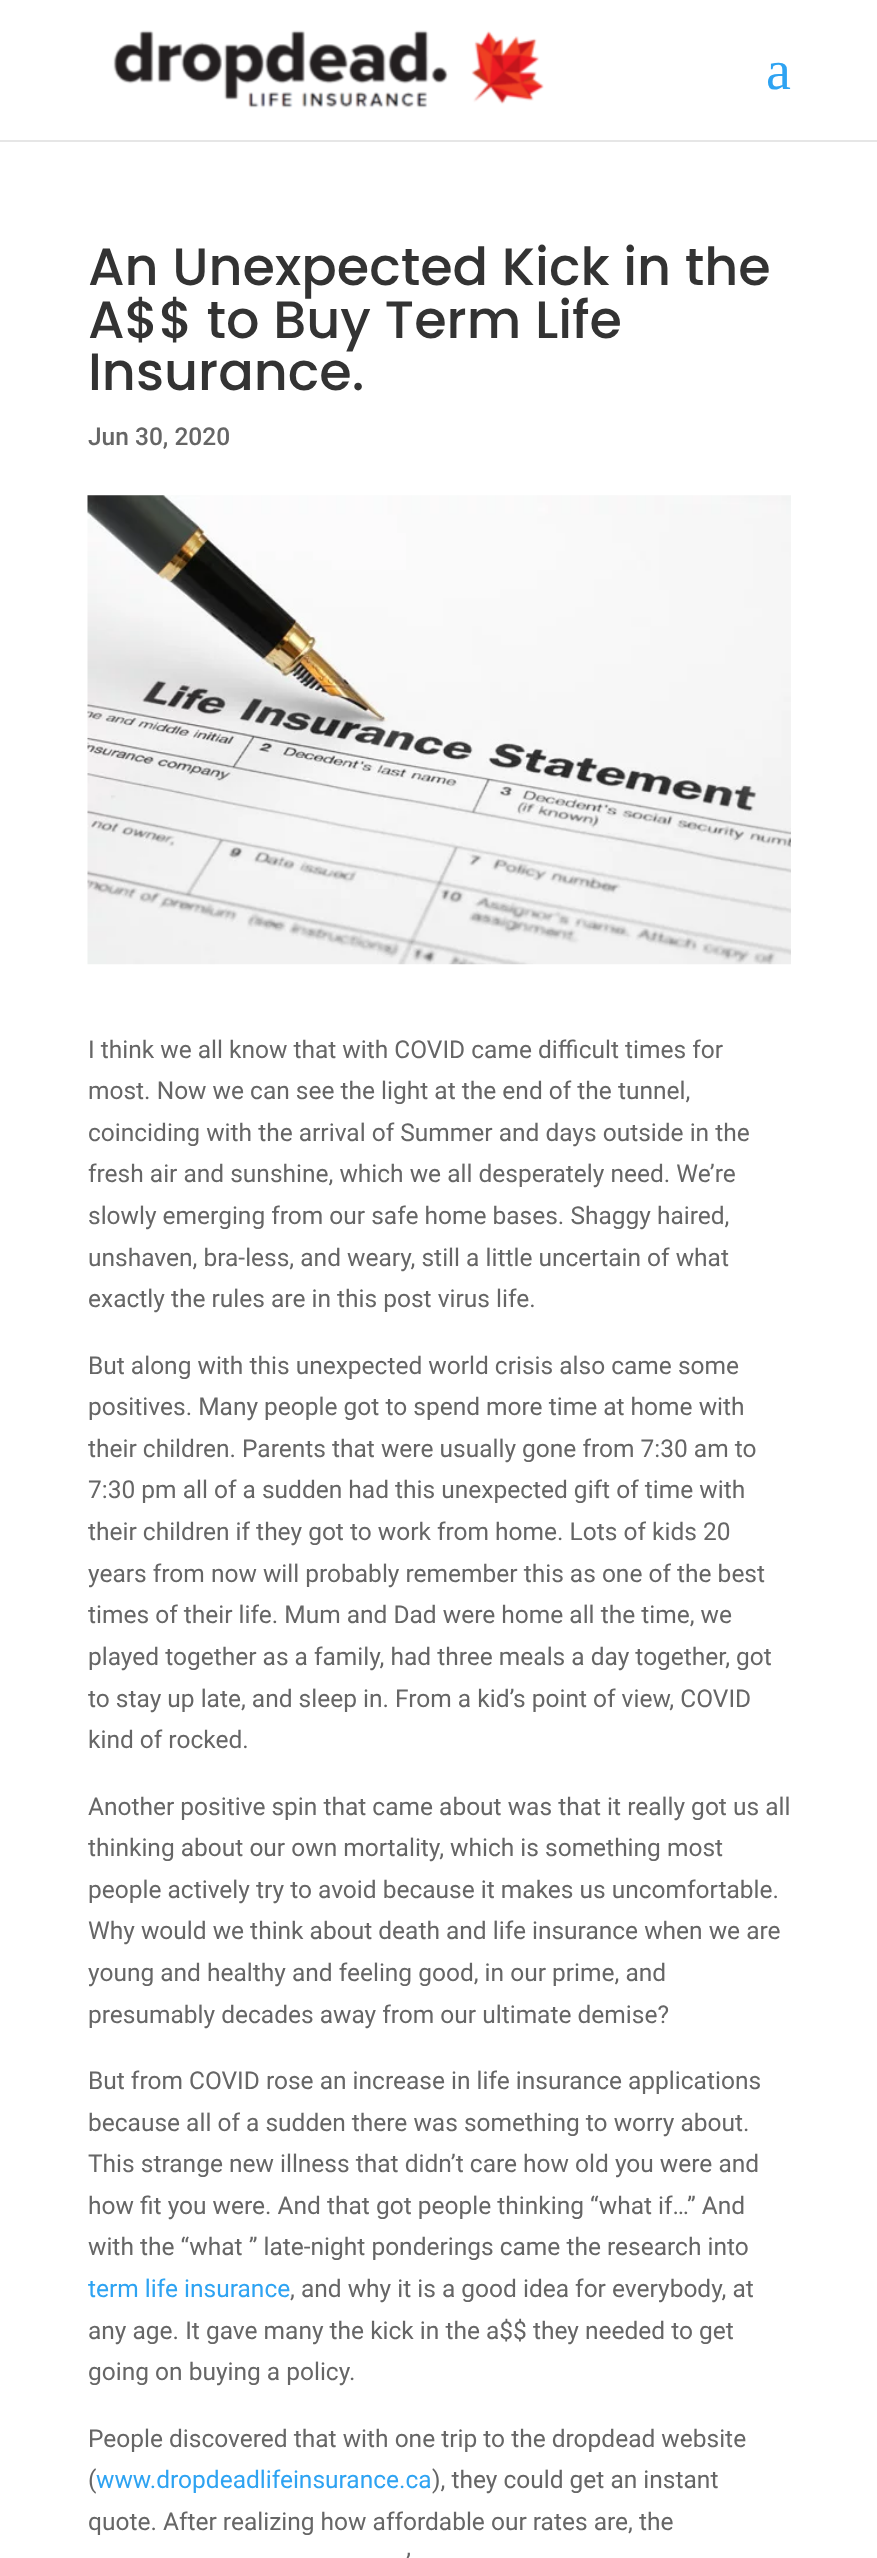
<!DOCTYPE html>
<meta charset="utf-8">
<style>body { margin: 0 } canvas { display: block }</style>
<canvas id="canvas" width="877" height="2558"></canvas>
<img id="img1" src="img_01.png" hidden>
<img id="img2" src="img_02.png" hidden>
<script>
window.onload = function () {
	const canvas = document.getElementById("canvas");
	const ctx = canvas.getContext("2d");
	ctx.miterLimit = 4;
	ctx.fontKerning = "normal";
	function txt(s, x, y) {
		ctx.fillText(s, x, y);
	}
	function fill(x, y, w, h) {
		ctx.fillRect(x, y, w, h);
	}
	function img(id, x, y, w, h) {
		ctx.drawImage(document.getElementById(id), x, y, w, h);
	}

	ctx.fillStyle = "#FFFFFF";
	fill(0, 0, 877, 2558);
	ctx.fillStyle = "#E6E6E6";
	ctx.beginPath();
	ctx.moveTo(0, 140);
	ctx.lineTo(0, 142);
	ctx.lineTo(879, 142);
	ctx.lineTo(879, 2);
	ctx.lineTo(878, 2);
	ctx.lineTo(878, 140);
	ctx.closePath();
	ctx.fill();
	img("img1", 113, 30, 431, 78);
	img("img2", 87, 495, 704, 470);
	ctx.font = "56px Liberation Serif";
	ctx.fillStyle = "#2EA3F2";
	txt("a", 766, 89);
	ctx.font = "500 52.5px Poppins";
	ctx.fillStyle = "#333333";
	txt("An Unexpected Kick in the", 88, 285);
	txt("A$$ to Buy Term Life", 88, 338);
	txt("Insurance.", 88, 390);
	ctx.font = "500 24.5px Roboto";
	ctx.fillStyle = "#666666";
	txt("Jun 30, 2020", 88, 445);
	ctx.font = "24.5px Roboto";
	txt("I think we all know that with COVID came difficult times for", 88, 1058);
	txt("most. Now we can see the light at the end of the tunnel,", 88, 1099);
	txt("coinciding with the arrival of Summer and days outside in the", 88, 1141);
	txt("fresh air and sunshine, which we all desperately need. We’re", 88, 1182);
	txt("slowly emerging from our safe home bases. Shaggy haired,", 88, 1224);
	txt("unshaven, bra-less, and weary, still a little uncertain of what", 88, 1266);
	txt("exactly the rules are in this post virus life.", 88, 1307);
	txt("But along with this unexpected world crisis also came some", 88, 1374);
	txt("positives. Many people got to spend more time at home with", 88, 1415);
	txt("their children. Parents that were usually gone from 7:30 am to", 88, 1457);
	txt("7:30 pm all of a sudden had this unexpected gift of time with", 88, 1498);
	txt("their children if they got to work from home. Lots of kids 20", 88, 1540);
	txt("years from now will probably remember this as one of the best", 88, 1582);
	txt("times of their life. Mum and Dad were home all the time, we", 88, 1623);
	txt("played together as a family, had three meals a day together, got", 88, 1665);
	txt("to stay up late, and sleep in. From a kid’s point of view, COVID", 88, 1707);
	txt("kind of rocked.", 88, 1748);
	txt("Another positive spin that came about was that it really got us all", 88, 1815);
	txt("thinking about our own mortality, which is something most", 88, 1856);
	txt("people actively try to avoid because it makes us uncomfortable.", 88, 1898);
	txt("Why would we think about death and life insurance when we are", 88, 1939);
	txt("young and healthy and feeling good, in our prime, and", 88, 1981);
	txt("presumably decades away from our ultimate demise?", 88, 2023);
	txt("But from COVID rose an increase in life insurance applications", 88, 2089);
	txt("because all of a sudden there was something to worry about.", 88, 2131);
	txt("This strange new illness that didn’t care how old you were and", 88, 2172);
	txt("how fit you were. And that got people thinking “what if…” And", 88, 2214);
	txt("with the “what ” late-night ponderings came the research into", 88, 2255);
	ctx.fillStyle = "#2EA3F2";
	txt("term life insurance", 88, 2297);
	ctx.fillStyle = "#666666";
	txt(", and why it is a good idea for everybody, at", 290, 2297);
	txt("any age. It gave many the kick in the a$$ they needed to get", 88, 2339);
	txt("going on buying a policy.", 88, 2380);
	txt("People discovered that with one trip to the dropdead website", 88, 2447);
	txt("(", 88, 2488);
	ctx.fillStyle = "#2EA3F2";
	txt("www.dropdeadlifeinsurance.ca", 96, 2488);
	ctx.fillStyle = "#666666";
	txt("), they could get an instant", 432, 2488);
	txt("quote. After realizing how affordable our rates are, the", 88, 2530);
	txt("’", 406, 2571);
};
</script>
